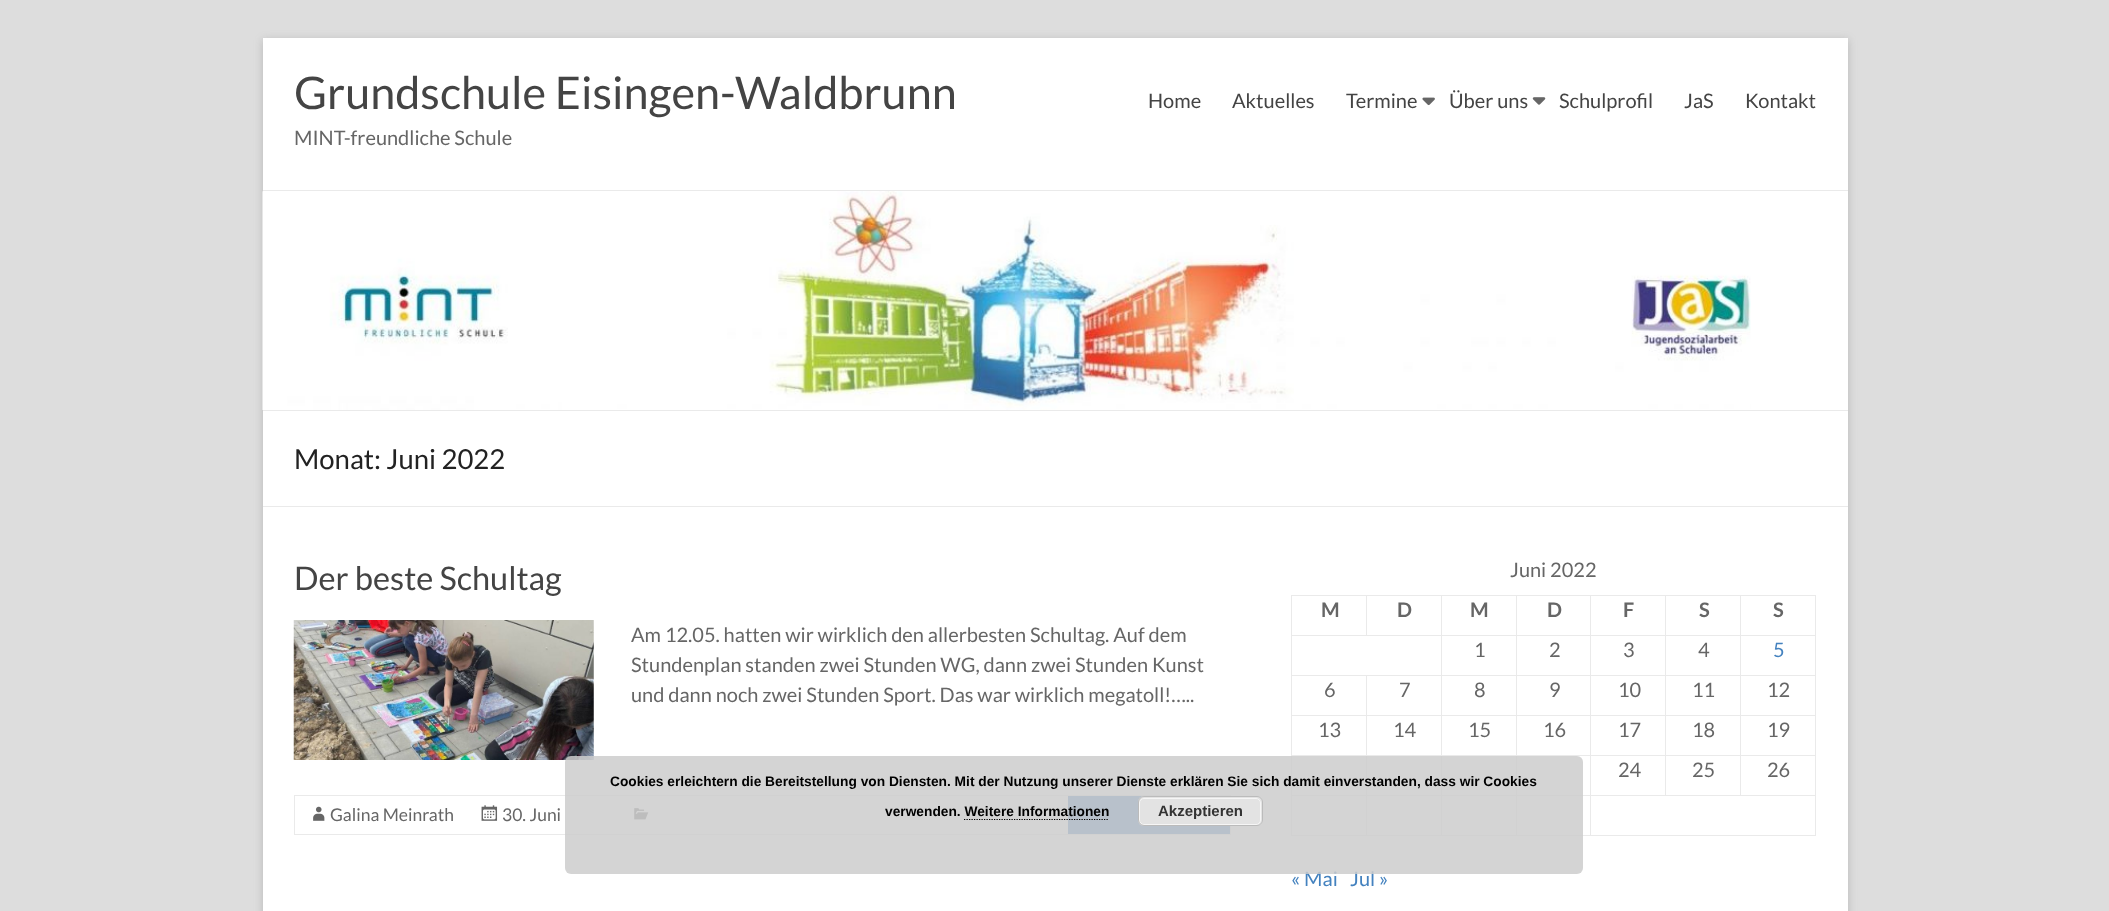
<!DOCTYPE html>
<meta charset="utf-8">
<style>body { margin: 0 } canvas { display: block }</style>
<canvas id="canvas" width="2109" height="911"></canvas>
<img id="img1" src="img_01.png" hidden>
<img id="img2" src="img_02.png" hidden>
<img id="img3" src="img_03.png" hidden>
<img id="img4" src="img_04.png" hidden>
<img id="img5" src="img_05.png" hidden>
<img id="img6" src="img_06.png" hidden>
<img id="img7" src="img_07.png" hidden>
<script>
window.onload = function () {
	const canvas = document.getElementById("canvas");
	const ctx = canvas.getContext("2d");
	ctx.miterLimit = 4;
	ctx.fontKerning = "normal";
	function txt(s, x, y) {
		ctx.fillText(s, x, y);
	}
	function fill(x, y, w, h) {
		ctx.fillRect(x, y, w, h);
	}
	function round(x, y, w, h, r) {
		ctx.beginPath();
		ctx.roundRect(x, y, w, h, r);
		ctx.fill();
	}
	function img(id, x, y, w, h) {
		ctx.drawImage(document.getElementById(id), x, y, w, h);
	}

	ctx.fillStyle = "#DDDDDD";
	fill(0, 0, 2109, 911);
	ctx.fillStyle = "rgba(100, 100, 100, 0.3)";
	ctx.filter = "blur(4px)";
	ctx.beginPath();
	ctx.rect(263, 40, 1585, 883);
	ctx.fill();
	ctx.filter = "none";
	ctx.fillStyle = "#FFFFFF";
	fill(263, 38, 1585, 873);
	ctx.fillStyle = "#EAEAEA";
	fill(263, 190, 1585, 1);
	img("img1", 1422, 97, 13, 9);
	img("img2", 1532, 97, 14, 8);
	img("img3", 262, 191, 1489, 219);
	fill(263, 410, 1585, 1);
	fill(263, 506, 1585, 1);
	img("img4", 293, 620, 301, 140);
	ctx.strokeStyle = "#EAEAEA";
	ctx.strokeRect(294.5, 795.5, 936, 39);
	img("img5", 313, 806, 12, 15);
	img("img6", 481, 805, 17, 16);
	img("img7", 634, 808, 15, 12);
	ctx.fillStyle = "#4482BF";
	fill(1068, 796, 162, 38);
	ctx.fillStyle = "#EAEAEA";
	fill(1740, 595, 76, 1);
	fill(1740, 635, 76, 1);
	fill(1740, 675, 76, 1);
	fill(1740, 715, 76, 1);
	fill(1740, 755, 76, 1);
	fill(1590, 795, 226, 1);
	fill(1740, 755, 1, 41);
	fill(1665, 755, 76, 1);
	fill(1740, 715, 1, 41);
	fill(1665, 715, 76, 1);
	fill(1740, 675, 1, 41);
	fill(1665, 675, 76, 1);
	fill(1740, 635, 1, 41);
	fill(1665, 635, 76, 1);
	fill(1740, 595, 1, 41);
	fill(1665, 595, 76, 1);
	fill(1665, 755, 1, 41);
	fill(1590, 755, 76, 1);
	fill(1665, 715, 1, 41);
	fill(1590, 715, 76, 1);
	fill(1665, 675, 1, 41);
	fill(1590, 675, 76, 1);
	fill(1665, 635, 1, 41);
	fill(1590, 635, 76, 1);
	fill(1665, 595, 1, 41);
	fill(1590, 595, 76, 1);
	fill(1815, 795, 1, 41);
	fill(1590, 835, 226, 1);
	fill(1590, 795, 1, 41);
	fill(1516, 795, 75, 1);
	fill(1590, 755, 1, 41);
	fill(1516, 755, 75, 1);
	fill(1590, 715, 1, 41);
	fill(1516, 715, 75, 1);
	fill(1590, 675, 1, 41);
	fill(1516, 675, 75, 1);
	fill(1590, 635, 1, 41);
	fill(1516, 635, 75, 1);
	fill(1590, 595, 1, 41);
	fill(1516, 595, 75, 1);
	fill(1516, 835, 75, 1);
	fill(1516, 795, 1, 41);
	fill(1441, 795, 77, 1);
	fill(1516, 755, 1, 41);
	fill(1441, 755, 77, 1);
	fill(1516, 715, 1, 41);
	fill(1441, 715, 77, 1);
	fill(1516, 675, 1, 41);
	fill(1441, 675, 77, 1);
	fill(1516, 635, 1, 41);
	fill(1441, 635, 77, 1);
	fill(1516, 595, 1, 41);
	fill(1441, 595, 77, 1);
	fill(1441, 835, 77, 1);
	fill(1441, 795, 1, 41);
	fill(1366, 795, 77, 1);
	fill(1441, 755, 1, 41);
	fill(1366, 755, 77, 1);
	fill(1441, 715, 1, 41);
	fill(1366, 715, 77, 1);
	fill(1441, 675, 1, 41);
	fill(1366, 675, 77, 1);
	fill(1441, 635, 1, 41);
	fill(1291, 635, 152, 1);
	fill(1441, 595, 1, 41);
	fill(1366, 595, 77, 1);
	fill(1366, 595, 1, 41);
	fill(1291, 595, 77, 1);
	fill(1366, 835, 77, 1);
	fill(1366, 795, 1, 41);
	fill(1291, 795, 77, 1);
	fill(1366, 755, 1, 41);
	fill(1291, 755, 77, 1);
	fill(1366, 715, 1, 41);
	fill(1291, 715, 77, 1);
	fill(1366, 675, 1, 41);
	fill(1291, 675, 77, 1);
	fill(1291, 835, 77, 1);
	fill(1291, 795, 1, 41);
	fill(1291, 755, 1, 41);
	fill(1291, 715, 1, 41);
	fill(1291, 675, 1, 41);
	fill(1291, 635, 1, 41);
	fill(1291, 595, 1, 41);
	fill(1815, 755, 1, 41);
	fill(1815, 715, 1, 41);
	fill(1815, 675, 1, 41);
	fill(1815, 635, 1, 41);
	fill(1815, 595, 1, 41);
	ctx.font = "45px Lato";
	ctx.fillStyle = "#444444";
	txt("Grundschule Eisingen-Waldbrunn", 294, 109);
	ctx.font = "20px Lato";
	ctx.fillStyle = "#666666";
	txt("MINT-freundliche Schule", 294, 145);
	ctx.fillStyle = "#444444";
	txt("Home", 1148, 108);
	txt("Aktuelles", 1232, 108);
	txt("Termine", 1346, 108);
	txt("Über uns", 1449, 108);
	txt("Schulprofil", 1559, 108);
	txt("JaS", 1684, 108);
	txt("Kontakt", 1745, 108);
	ctx.font = "27.5px Lato";
	ctx.fillStyle = "#222222";
	txt("Monat: Juni 2022", 294, 469);
	ctx.font = "32.5px Lato";
	ctx.fillStyle = "#444444";
	txt("Der beste Schultag", 294, 590);
	ctx.font = "20px Lato";
	ctx.fillStyle = "#666666";
	txt("Am 12.05. hatten wir wirklich den allerbesten Schultag. Auf dem", 631, 642);
	txt("Stundenplan standen zwei Stunden WG, dann zwei Stunden Kunst", 631, 672);
	txt("und dann noch zwei Stunden Sport. Das war wirklich megatoll!…..", 631, 702);
	ctx.font = "17.5px Lato";
	txt("Galina Meinrath", 330, 821);
	txt("30. Juni", 502, 821);
	ctx.font = "20px Lato";
	txt("Juni 2022", 1510, 577);
	ctx.font = "bold 20px Lato";
	txt("M", 1321, 617);
	txt("D", 1397, 617);
	txt("M", 1470, 617);
	txt("D", 1547, 617);
	txt("F", 1623, 617);
	txt("S", 1699, 617);
	txt("S", 1773, 617);
	ctx.font = "20px Lato";
	txt("1", 1474, 657);
	txt("2", 1549, 657);
	txt("3", 1623, 657);
	txt("4", 1698, 657);
	ctx.fillStyle = "#4482BF";
	txt("5", 1773, 657);
	ctx.fillStyle = "#666666";
	txt("6", 1324, 697);
	txt("7", 1399, 697);
	txt("8", 1474, 697);
	txt("9", 1549, 697);
	txt("10", 1618, 697);
	txt("11", 1692, 697);
	txt("12", 1767, 697);
	txt("13", 1318, 737);
	txt("14", 1393, 737);
	txt("15", 1468, 737);
	txt("16", 1543, 737);
	txt("17", 1618, 737);
	txt("18", 1692, 737);
	txt("19", 1767, 737);
	txt("24", 1618, 777);
	txt("25", 1692, 777);
	txt("26", 1767, 777);
	ctx.fillStyle = "#4482BF";
	txt("« Mai", 1291, 886);
	txt("Jul »", 1350, 886);
	ctx.fillStyle = "rgba(204, 204, 204, 0.85)";
	round(565, 756, 1018, 118, 6);
	ctx.font = "bold 13.75px Liberation Sans";
	ctx.fillStyle = "#000000";
	txt("Cookies erleichtern die Bereitstellung von Diensten. Mit der Nutzung unserer Dienste erklären Sie sich damit einverstanden, dass wir Cookies", 610, 786);
	txt("verwenden. Weitere Informationen", 885, 816);
	ctx.fillStyle = "#E3E3E3";
	round(1138, 796, 125, 30, 6);
	ctx.beginPath();
	ctx.roundRect(1139.5, 798.5, 121, 26, 4.5);
	ctx.strokeStyle = "#F6F6F6";
	ctx.stroke();
	ctx.beginPath();
	ctx.roundRect(1138.5, 796.5, 124, 29, 5.5);
	ctx.strokeStyle = "#BBBBBB";
	ctx.stroke();
	ctx.font = "bold 15px Liberation Sans";
	ctx.fillStyle = "#333333";
	txt("Akzeptieren", 1158, 816);
	ctx.beginPath();
	ctx.moveTo(964, 819.5);
	ctx.lineTo(1109, 819.5);
	ctx.strokeStyle = "#000000";
	ctx.lineWidth = 1.2;
	ctx.setLineDash([1.25, 1.25]);
	ctx.stroke();
};
</script>
